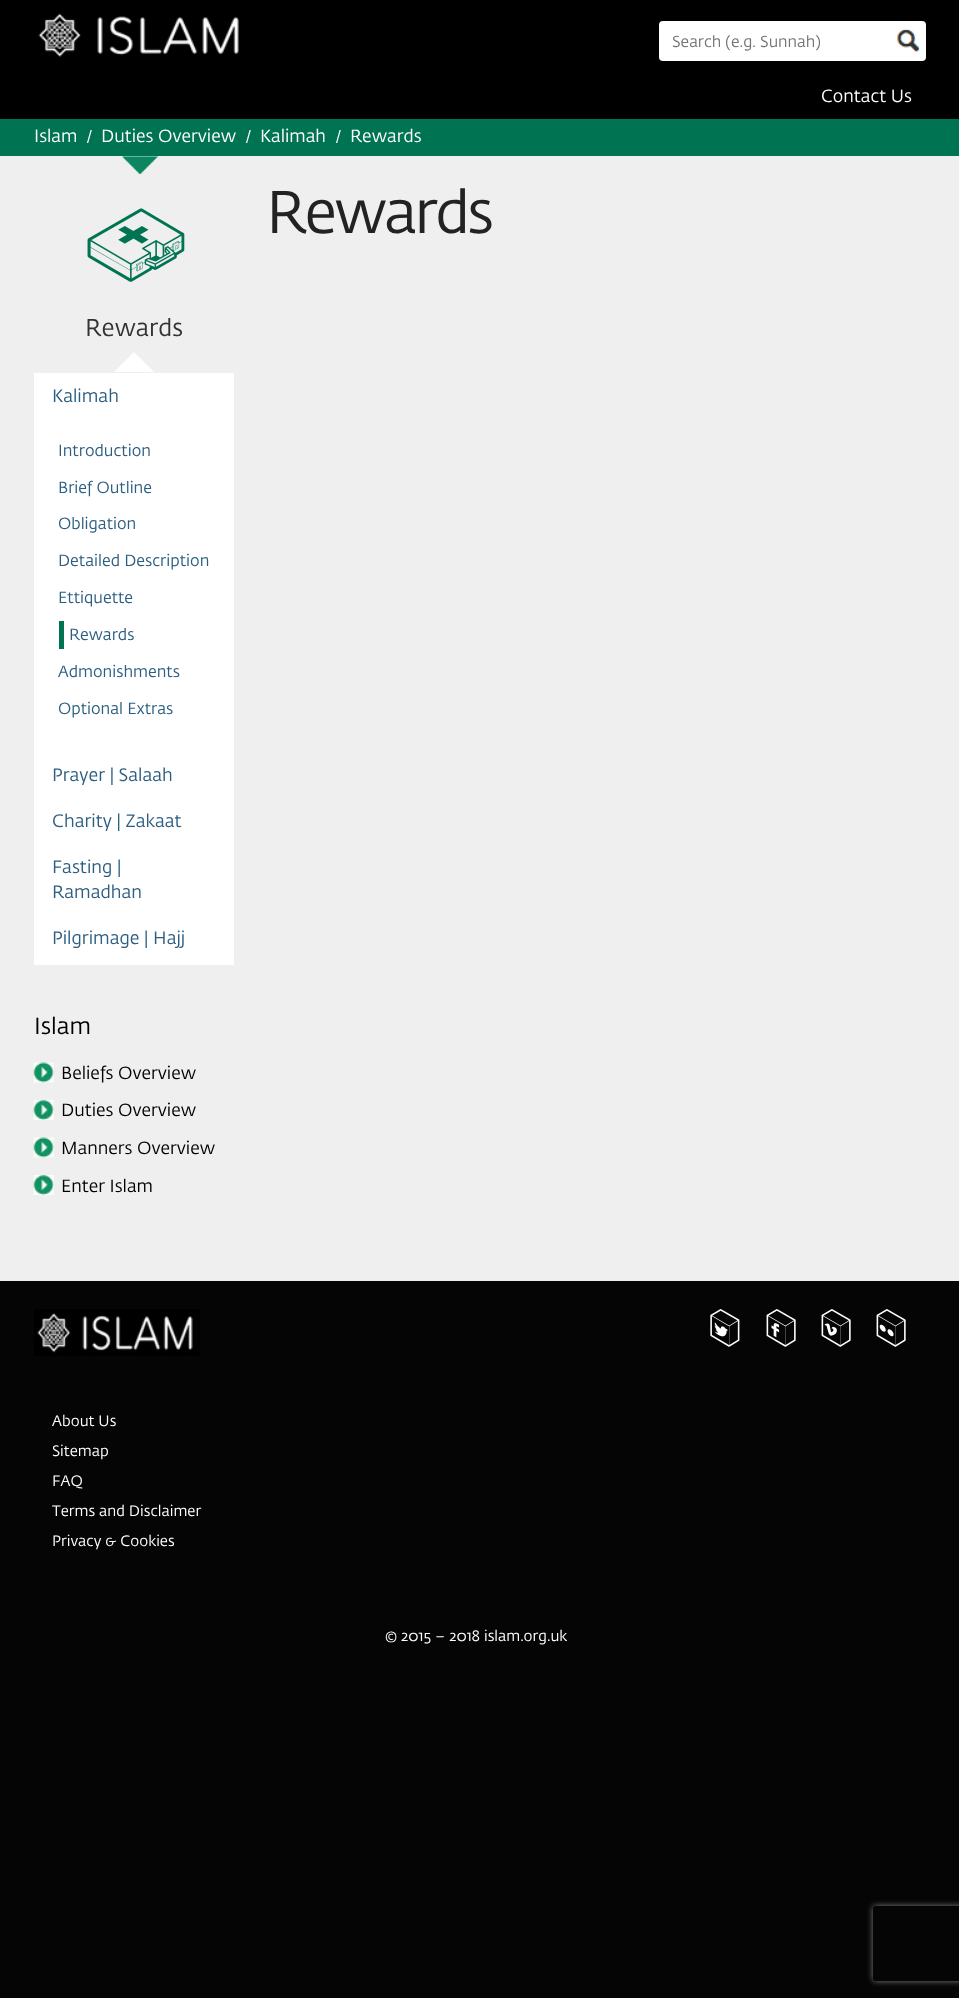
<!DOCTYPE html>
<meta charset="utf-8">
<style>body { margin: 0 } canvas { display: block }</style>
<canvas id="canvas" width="959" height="1998"></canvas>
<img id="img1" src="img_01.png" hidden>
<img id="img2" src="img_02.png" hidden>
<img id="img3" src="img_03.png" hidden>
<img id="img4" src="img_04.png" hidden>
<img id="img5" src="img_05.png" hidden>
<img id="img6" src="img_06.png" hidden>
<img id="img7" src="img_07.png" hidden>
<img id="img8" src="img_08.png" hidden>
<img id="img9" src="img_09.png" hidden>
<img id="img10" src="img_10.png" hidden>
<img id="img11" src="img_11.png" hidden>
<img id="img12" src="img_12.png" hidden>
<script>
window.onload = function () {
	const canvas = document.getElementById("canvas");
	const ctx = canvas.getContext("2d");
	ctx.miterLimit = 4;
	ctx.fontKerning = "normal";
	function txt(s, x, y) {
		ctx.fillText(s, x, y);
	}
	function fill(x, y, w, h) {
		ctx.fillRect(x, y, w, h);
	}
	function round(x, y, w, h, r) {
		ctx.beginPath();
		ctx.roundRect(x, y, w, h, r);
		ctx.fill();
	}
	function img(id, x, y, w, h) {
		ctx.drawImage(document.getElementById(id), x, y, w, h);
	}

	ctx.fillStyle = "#050505";
	fill(0, 0, 959, 1998);
	ctx.fillStyle = "#000000";
	fill(0, 0, 959, 119);
	img("img1", 38, 13, 201, 44);
	ctx.fillStyle = "#FFFFFF";
	round(659, 21, 267, 40, 4);
	img("img2", 896, 29, 25, 23);
	ctx.fillStyle = "#007352";
	fill(0, 119, 959, 37);
	ctx.fillStyle = "#EFEFEF";
	fill(0, 156, 959, 1125);
	img("img3", 122, 156, 36, 18);
	img("img4", 87, 208, 98, 74);
	ctx.fillStyle = "#FFFFFF";
	fill(34, 373, 200, 592);
	ctx.beginPath();
	ctx.moveTo(154, 372);
	ctx.lineTo(114, 372);
	ctx.lineTo(134, 352);
	ctx.closePath();
	ctx.fill();
	ctx.fillStyle = "#007352";
	fill(59, 621, 5, 28);
	img("img5", 33, 1062, 21, 21);
	img("img6", 33, 1100, 21, 20);
	img("img5", 33, 1137, 21, 21);
	img("img7", 33, 1175, 21, 20);
	img("img8", 34, 1309, 166, 47);
	img("img9", 710, 1309, 30, 38);
	img("img10", 766, 1309, 30, 38);
	img("img11", 821, 1309, 30, 38);
	img("img12", 876, 1309, 30, 38);
	ctx.save();
	ctx.beginPath();
	ctx.moveTo(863, 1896);
	ctx.lineTo(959, 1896);
	ctx.lineTo(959, 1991);
	ctx.lineTo(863, 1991);
	ctx.closePath();
	ctx.moveTo(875.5, 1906);
	ctx.lineTo(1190.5, 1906);
	ctx.bezierCurveTo(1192, 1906, 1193, 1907, 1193, 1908.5);
	ctx.lineTo(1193, 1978.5);
	ctx.bezierCurveTo(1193, 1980, 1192, 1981, 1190.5, 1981);
	ctx.lineTo(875.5, 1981);
	ctx.bezierCurveTo(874, 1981, 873, 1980, 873, 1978.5);
	ctx.lineTo(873, 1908.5);
	ctx.bezierCurveTo(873, 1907, 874, 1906, 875.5, 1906);
	ctx.closePath();
	ctx.clip("evenodd");
	ctx.fillStyle = "#808080";
	ctx.filter = "blur(3px)";
	ctx.beginPath();
	ctx.roundRect(873, 1906, 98, 75, 2.5);
	ctx.fill();
	ctx.filter = "none";
	ctx.restore();
	ctx.font = "15.75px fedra";
	ctx.fillStyle = "#757575";
	txt("Search (e.g. Sunnah)", 672, 47);
	ctx.font = "17.5px fedra";
	ctx.fillStyle = "#FFFFFF";
	txt("Contact Us", 821, 102);
	txt("Islam", 34, 142);
	ctx.font = "15.75px fedra";
	txt("/", 86, 142);
	ctx.font = "17.5px fedra";
	txt("Duties Overview", 101, 142);
	ctx.font = "15.75px fedra";
	txt("/", 245, 142);
	ctx.font = "17.5px fedra";
	txt("Kalimah", 260, 142);
	ctx.font = "15.75px fedra";
	txt("/", 335, 142);
	ctx.font = "17.5px fedra";
	txt("Rewards", 350, 142);
	ctx.letterSpacing = "-2.5px";
	ctx.font = "59.5px fedra";
	ctx.fillStyle = "#222222";
	txt("Rewards", 266, 233);
	ctx.letterSpacing = "0px";
	ctx.font = "24px fedra";
	ctx.fillStyle = "#333333";
	txt("Rewards", 85, 336);
	ctx.font = "17.75px fedra";
	ctx.fillStyle = "#2B5E80";
	txt("Kalimah", 52, 402);
	ctx.font = "16px fedra";
	txt("Introduction", 58, 456);
	txt("Brief Outline", 58, 493);
	txt("Obligation", 58, 529);
	txt("Detailed Description", 58, 566);
	txt("Ettiquette", 58, 603);
	txt("Rewards", 69, 640);
	txt("Admonishments", 58, 677);
	txt("Optional Extras", 58, 714);
	ctx.font = "17.75px fedra";
	txt("Prayer | Salaah", 52, 781);
	txt("Charity | Zakaat", 52, 827);
	txt("Fasting |", 52, 873);
	txt("Ramadhan", 52, 898);
	txt("Pilgrimage | Hajj", 52, 944);
	ctx.font = "23px fedra";
	ctx.fillStyle = "#000000";
	txt("Islam", 34, 1034);
	ctx.font = "17.5px fedra";
	txt("Beliefs Overview", 61, 1079);
	txt("Duties Overview", 61, 1116);
	txt("Manners Overview", 61, 1154);
	txt("Enter Islam", 61, 1192);
	ctx.font = "14.9px fedra";
	ctx.fillStyle = "#FFFFFF";
	txt("About Us", 52, 1426);
	txt("Sitemap", 52, 1456);
	txt("FAQ", 52, 1486);
	txt("Terms and Disclaimer", 52, 1516);
	txt("Privacy & Cookies", 52, 1546);
	txt("© 2015 – 2018 islam.org.uk", 385, 1641);
};
</script>
